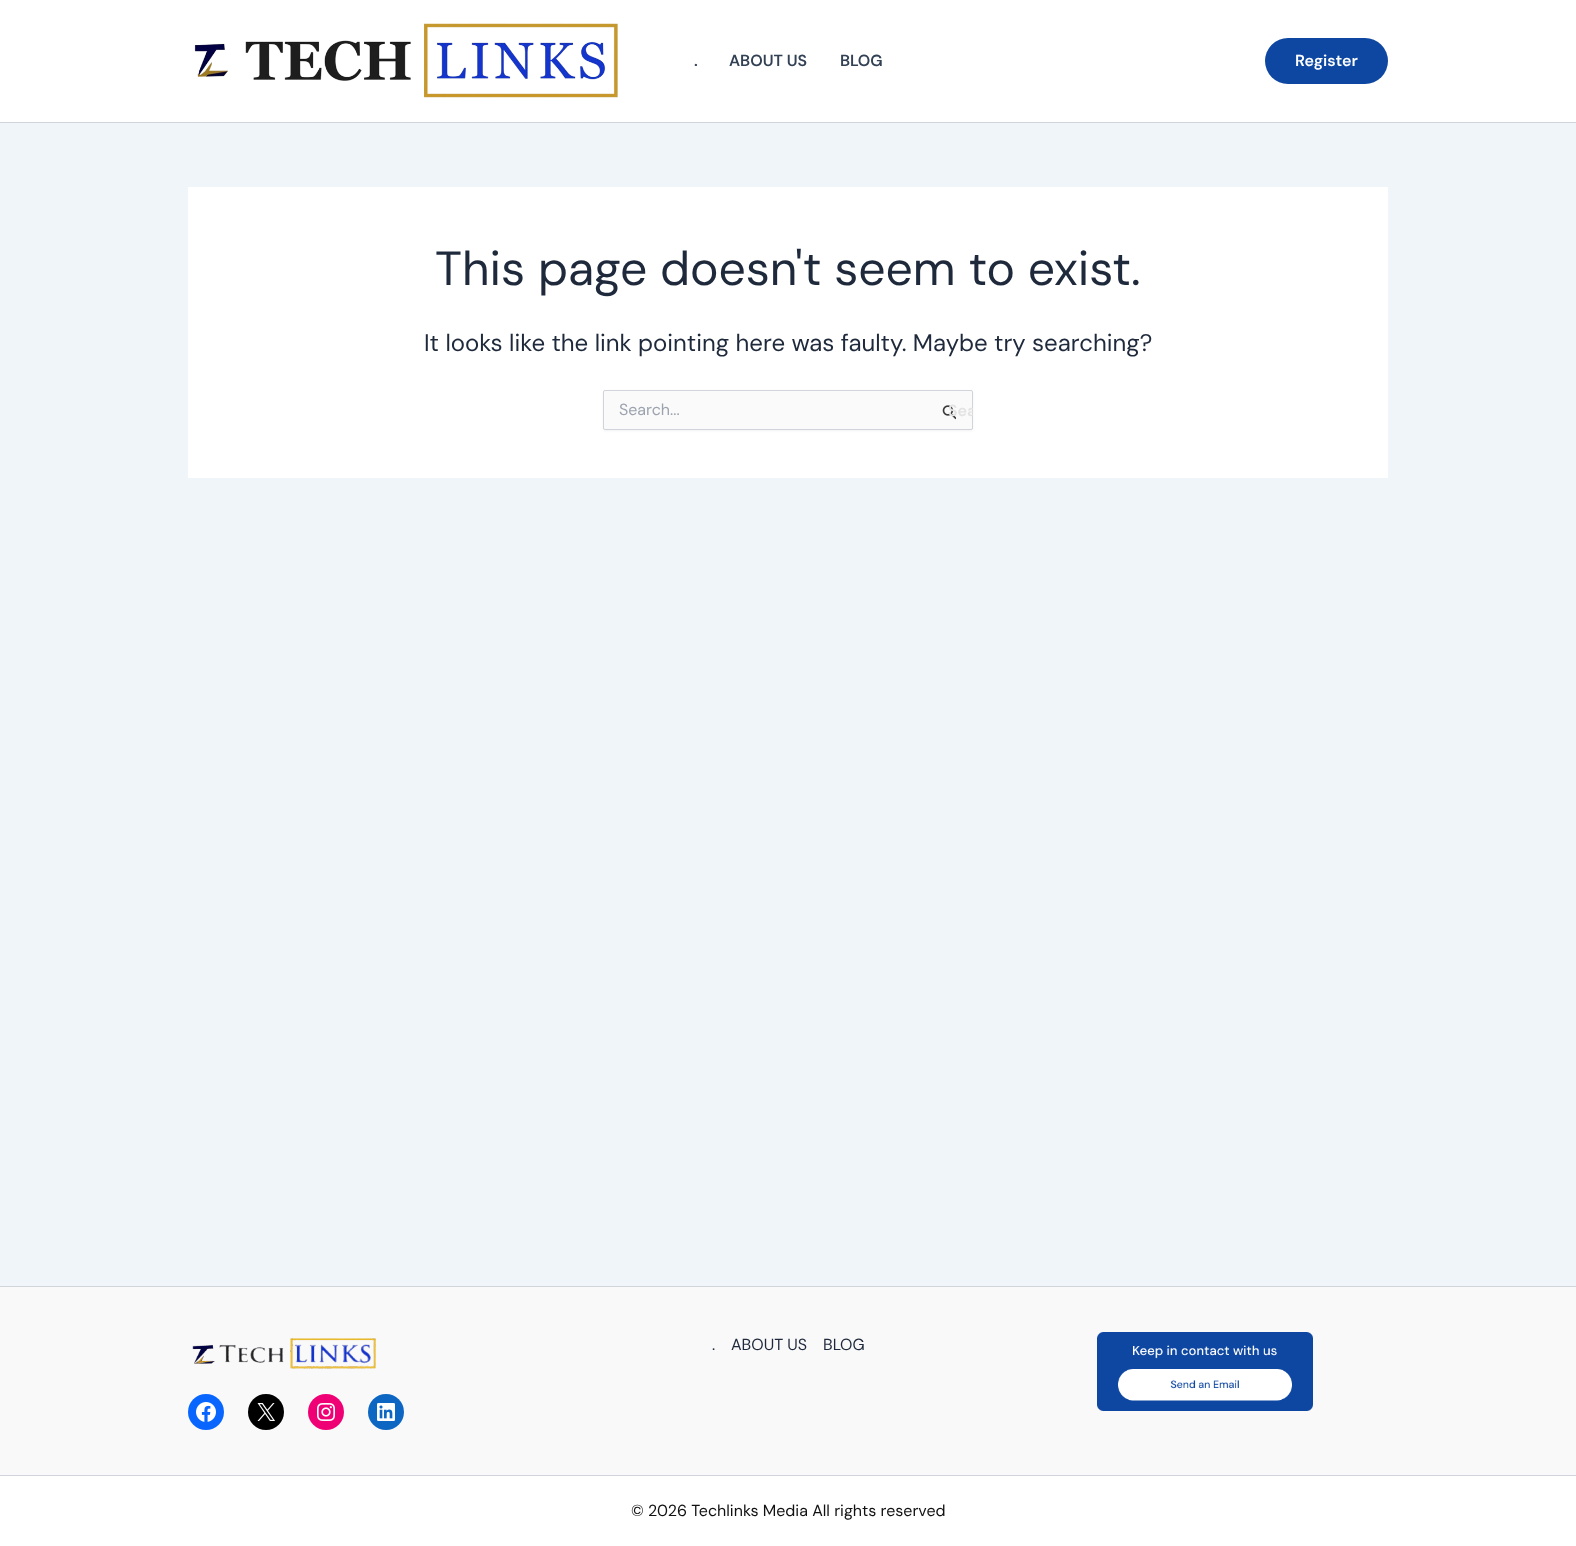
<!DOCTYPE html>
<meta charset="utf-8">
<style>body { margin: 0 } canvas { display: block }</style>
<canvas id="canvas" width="1576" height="1546"></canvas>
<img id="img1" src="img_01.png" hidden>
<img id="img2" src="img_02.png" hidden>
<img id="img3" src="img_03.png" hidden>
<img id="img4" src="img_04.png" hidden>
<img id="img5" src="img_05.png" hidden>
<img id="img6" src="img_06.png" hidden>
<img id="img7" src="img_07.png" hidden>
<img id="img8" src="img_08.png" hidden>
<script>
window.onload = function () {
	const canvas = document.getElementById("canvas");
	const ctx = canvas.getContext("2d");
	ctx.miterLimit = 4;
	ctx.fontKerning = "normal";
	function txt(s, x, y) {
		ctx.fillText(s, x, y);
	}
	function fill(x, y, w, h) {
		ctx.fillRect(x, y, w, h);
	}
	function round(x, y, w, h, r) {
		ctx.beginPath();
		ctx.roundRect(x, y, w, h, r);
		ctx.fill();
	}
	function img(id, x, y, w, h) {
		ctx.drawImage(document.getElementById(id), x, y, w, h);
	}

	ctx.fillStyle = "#F0F5FA";
	fill(0, 0, 1576, 1546);
	ctx.fillStyle = "#FFFFFF";
	fill(0, 0, 1576, 122);
	ctx.fillStyle = "#D1D5DB";
	fill(0, 122, 1576, 1);
	img("img1", 194, 23, 424, 75);
	ctx.fillStyle = "#0E47A1";
	round(1265, 38, 123, 46, 23);
	ctx.fillStyle = "#FFFFFF";
	fill(188, 187, 1200, 291);
	ctx.fillStyle = "rgba(0, 0, 0, 0.05)";
	ctx.filter = "blur(1px)";
	ctx.beginPath();
	ctx.roundRect(603, 391, 370, 40, 2);
	ctx.fill();
	ctx.filter = "none";
	ctx.fillStyle = "#FAFAFA";
	ctx.beginPath();
	ctx.roundRect(603.5, 390.5, 369, 39, 1.5);
	ctx.fill();
	ctx.strokeStyle = "#D1D5DB";
	ctx.stroke();
	img("img2", 942, 405, 14, 15);
	ctx.fillStyle = "#F9F9F9";
	fill(0, 1287, 1576, 188);
	ctx.fillStyle = "#D1D5DB";
	fill(0, 1286, 1576, 1);
	img("img3", 192, 1338, 184, 31);
	ctx.fillStyle = "#0866FF";
	ctx.beginPath();
	ctx.arc(206, 1412, 18, 0, Math.PI * 2);
	ctx.fill();
	img("img4", 196, 1402, 20, 20);
	ctx.fillStyle = "#000000";
	ctx.beginPath();
	ctx.arc(266, 1412, 18, 0, Math.PI * 2);
	ctx.fill();
	img("img5", 257, 1403, 18, 18);
	ctx.fillStyle = "#F00075";
	ctx.beginPath();
	ctx.arc(326, 1412, 18, 0, Math.PI * 2);
	ctx.fill();
	img("img6", 317, 1403, 18, 18);
	ctx.fillStyle = "#0D66C2";
	ctx.beginPath();
	ctx.arc(386, 1412, 18, 0, Math.PI * 2);
	ctx.fill();
	img("img7", 377, 1403, 18, 18);
	img("img8", 1097, 1332, 216, 79);
	ctx.fillStyle = "#FFFFFF";
	fill(0, 1476, 1576, 70);
	ctx.fillStyle = "#D1D5DB";
	fill(0, 1475, 1576, 1);
	ctx.font = "600 16px DM Sans";
	ctx.fillStyle = "#334155";
	txt(".", 694, 66);
	txt("ABOUT US", 729, 66);
	txt("BLOG", 840, 66);
	ctx.fillStyle = "#FFFFFF";
	txt("Register", 1295, 66);
	ctx.font = "48px DM Sans";
	ctx.fillStyle = "#1E293B";
	txt("This page doesn't seem to exist.", 435, 285);
	ctx.font = "24px DM Sans";
	txt("It looks like the link pointing here was faulty. Maybe try searching?", 424, 351);
	ctx.font = "16px DM Sans";
	ctx.fillStyle = "#9CA3AF";
	txt("Search...", 619, 415);
	ctx.save();
	ctx.beginPath();
	ctx.roundRect(928, 390, 45, 42, 2);
	ctx.clip();
	ctx.font = "600 16px DM Sans";
	ctx.fillStyle = "#E3E3E3";
	txt("Sea", 948, 416);
	ctx.restore();
	ctx.fillStyle = "#1E293B";
	txt(".", 712, 1350);
	txt("ABOUT US", 731, 1350);
	txt("BLOG", 823, 1350);
	ctx.fillStyle = "#111111";
	txt("© 2026 Techlinks Media All rights reserved", 631, 1516);
};
</script>
